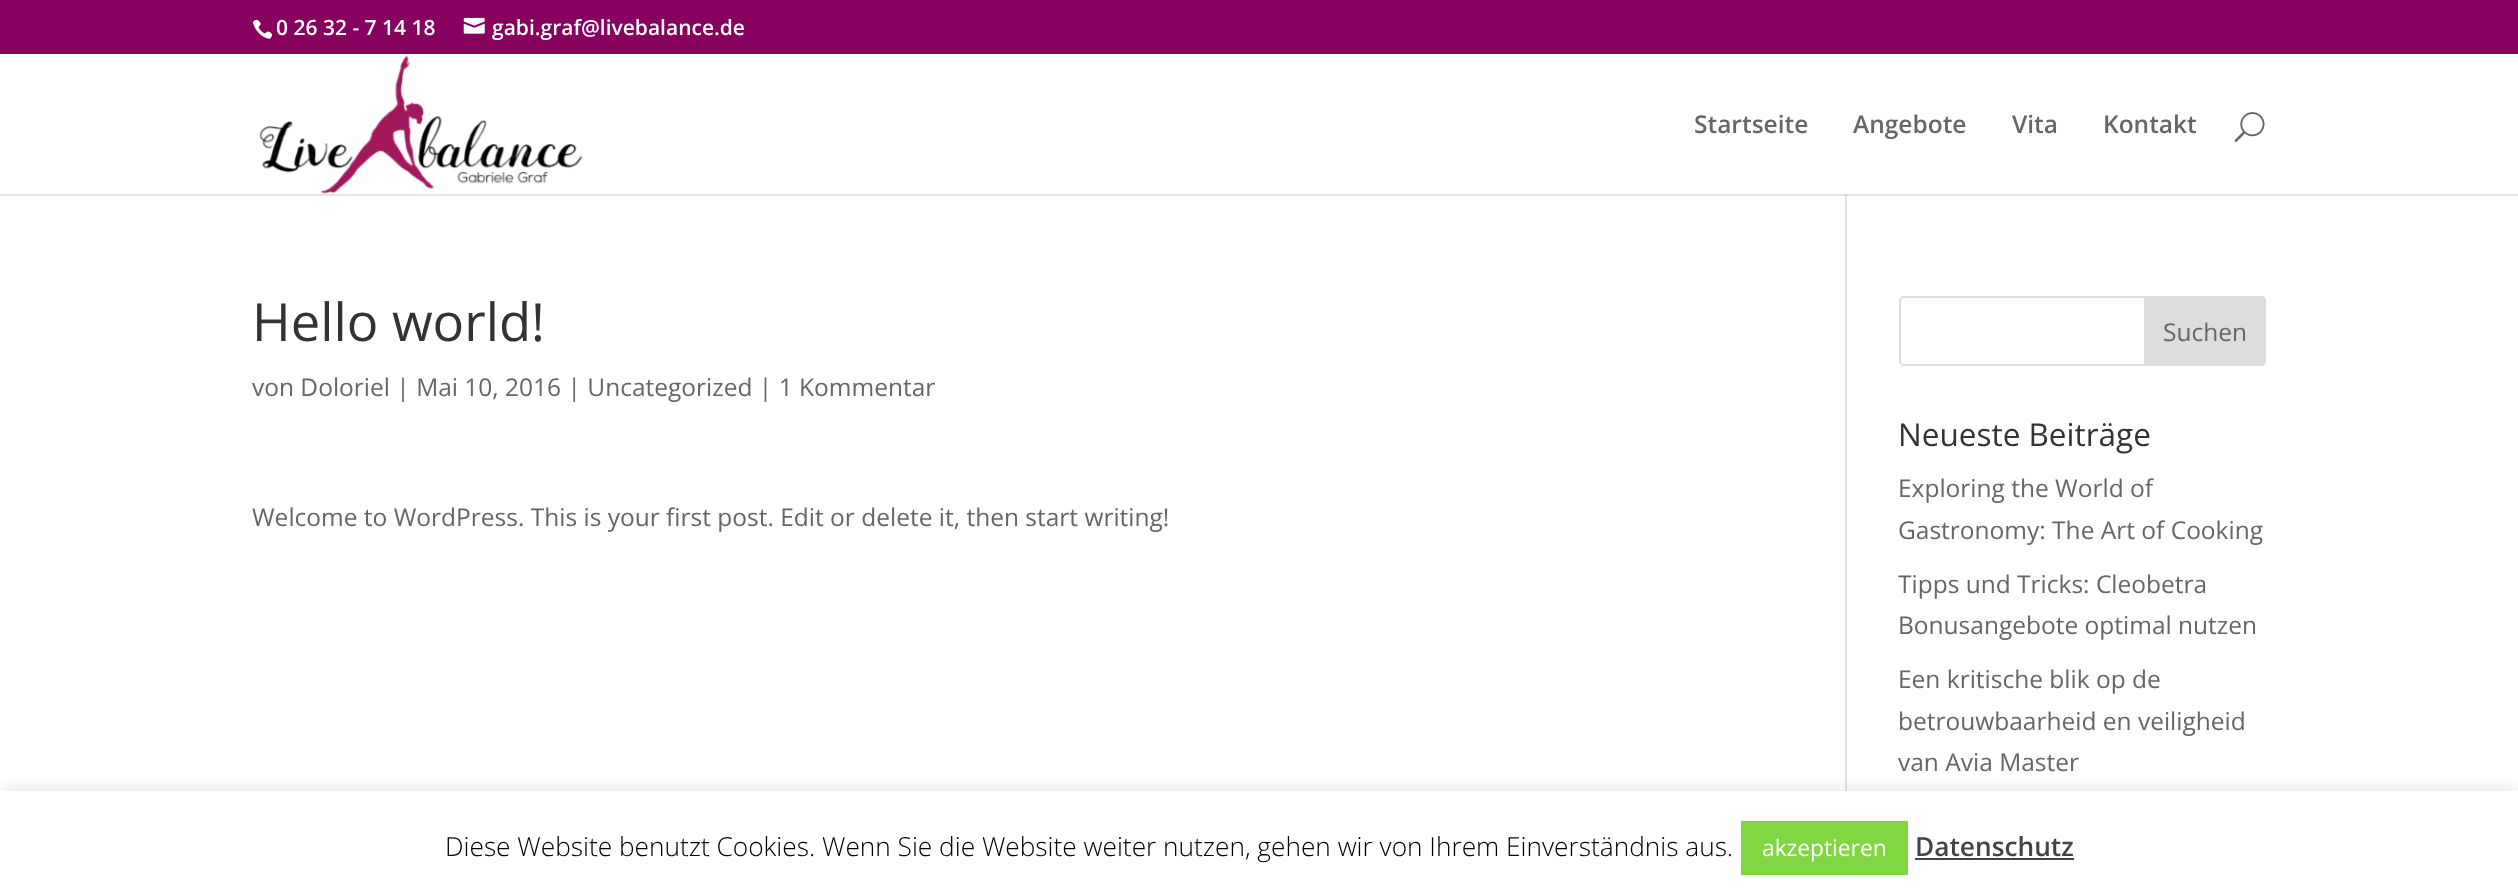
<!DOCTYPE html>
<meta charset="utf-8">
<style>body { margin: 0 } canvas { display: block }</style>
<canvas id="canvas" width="2518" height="896"></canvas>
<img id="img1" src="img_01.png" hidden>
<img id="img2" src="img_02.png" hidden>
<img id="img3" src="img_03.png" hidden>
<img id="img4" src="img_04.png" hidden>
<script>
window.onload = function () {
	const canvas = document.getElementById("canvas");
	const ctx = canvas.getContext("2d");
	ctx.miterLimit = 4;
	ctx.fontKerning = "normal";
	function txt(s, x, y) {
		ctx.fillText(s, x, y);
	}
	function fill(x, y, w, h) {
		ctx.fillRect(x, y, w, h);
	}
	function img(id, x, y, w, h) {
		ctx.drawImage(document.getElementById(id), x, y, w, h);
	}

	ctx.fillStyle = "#FFFFFF";
	fill(0, 0, 2518, 896);
	ctx.fillStyle = "#E6E6E6";
	fill(0, 194, 2518, 2);
	ctx.fillStyle = "#87015F";
	fill(0, 0, 2518, 54);
	img("img1", 252, 19, 21, 20);
	img("img2", 463, 17, 22, 17);
	img("img3", 259, 55, 324, 139);
	img("img4", 2234, 112, 31, 30);
	ctx.fillStyle = "#E2E2E2";
	fill(1845, 194, 2, 597);
	ctx.fillStyle = "#CBCBCB";
	fill(1845, 194, 2, 2);
	ctx.beginPath();
	ctx.roundRect(1900, 297, 365, 68, 4);
	ctx.strokeStyle = "#DDDDDD";
	ctx.lineWidth = 2;
	ctx.stroke();
	ctx.fillStyle = "#DDDDDD";
	ctx.beginPath();
	ctx.roundRect(2145, 297, 120, 68, [0, 4, 4, 0]);
	ctx.fill();
	ctx.stroke();
	ctx.fillStyle = "rgba(172, 171, 171, 0.3)";
	ctx.filter = "blur(9px)";
	ctx.beginPath();
	ctx.rect(0, 789, 2518, 105);
	ctx.fill();
	ctx.filter = "none";
	ctx.fillStyle = "#FFFFFF";
	fill(0, 791, 2518, 105);
	ctx.fillStyle = "#81D742";
	fill(1741, 821, 167, 54);
	ctx.fillStyle = "#444444";
	fill(1915, 858, 159, 2);
	ctx.font = "600 21px Open Sans";
	ctx.fillStyle = "#FFFFFF";
	txt("0 26 32 - 7 14 18", 276, 35);
	txt("gabi.graf@livebalance.de", 492, 35);
	ctx.font = "600 24.5px Open Sans";
	ctx.fillStyle = "#666666";
	txt("Startseite", 1694, 133);
	txt("Angebote", 1853, 133);
	txt("Vita", 2012, 133);
	txt("Kontakt", 2103, 133);
	ctx.font = "52.5px Open Sans";
	ctx.fillStyle = "#333333";
	txt("Hello world!", 252, 341);
	ctx.font = "24.5px Open Sans";
	ctx.fillStyle = "#666666";
	txt("von Doloriel | Mai 10, 2016 | Uncategorized | 1 Kommentar", 252, 396);
	txt("Welcome to WordPress. This is your first post. Edit or delete it, then start writing!", 252, 526);
	txt("Suchen", 2163, 341);
	ctx.font = "31.5px Open Sans";
	ctx.fillStyle = "#333333";
	txt("Neueste Beiträge", 1898, 446);
	ctx.font = "24.5px Open Sans";
	ctx.fillStyle = "#666666";
	txt("Exploring the World of", 1898, 497);
	txt("Gastronomy: The Art of Cooking", 1898, 539);
	txt("Tipps und Tricks: Cleobetra", 1898, 593);
	txt("Bonusangebote optimal nutzen", 1898, 634);
	txt("Een kritische blik op de", 1898, 688);
	txt("betrouwbaarheid en veiligheid", 1898, 730);
	txt("van Avia Master", 1898, 771);
	ctx.font = "300 26.25px Open Sans";
	ctx.fillStyle = "#000000";
	txt("Diese Website benutzt Cookies. Wenn Sie die Website weiter nutzen, gehen wir von Ihrem Einverständnis aus.", 445, 856);
	ctx.font = "22.75px Open Sans";
	ctx.fillStyle = "#FFFFFF";
	txt("akzeptieren", 1762, 856);
	ctx.font = "600 26.25px Open Sans";
	ctx.fillStyle = "#444444";
	txt("Datenschutz", 1915, 856);
};
</script>
